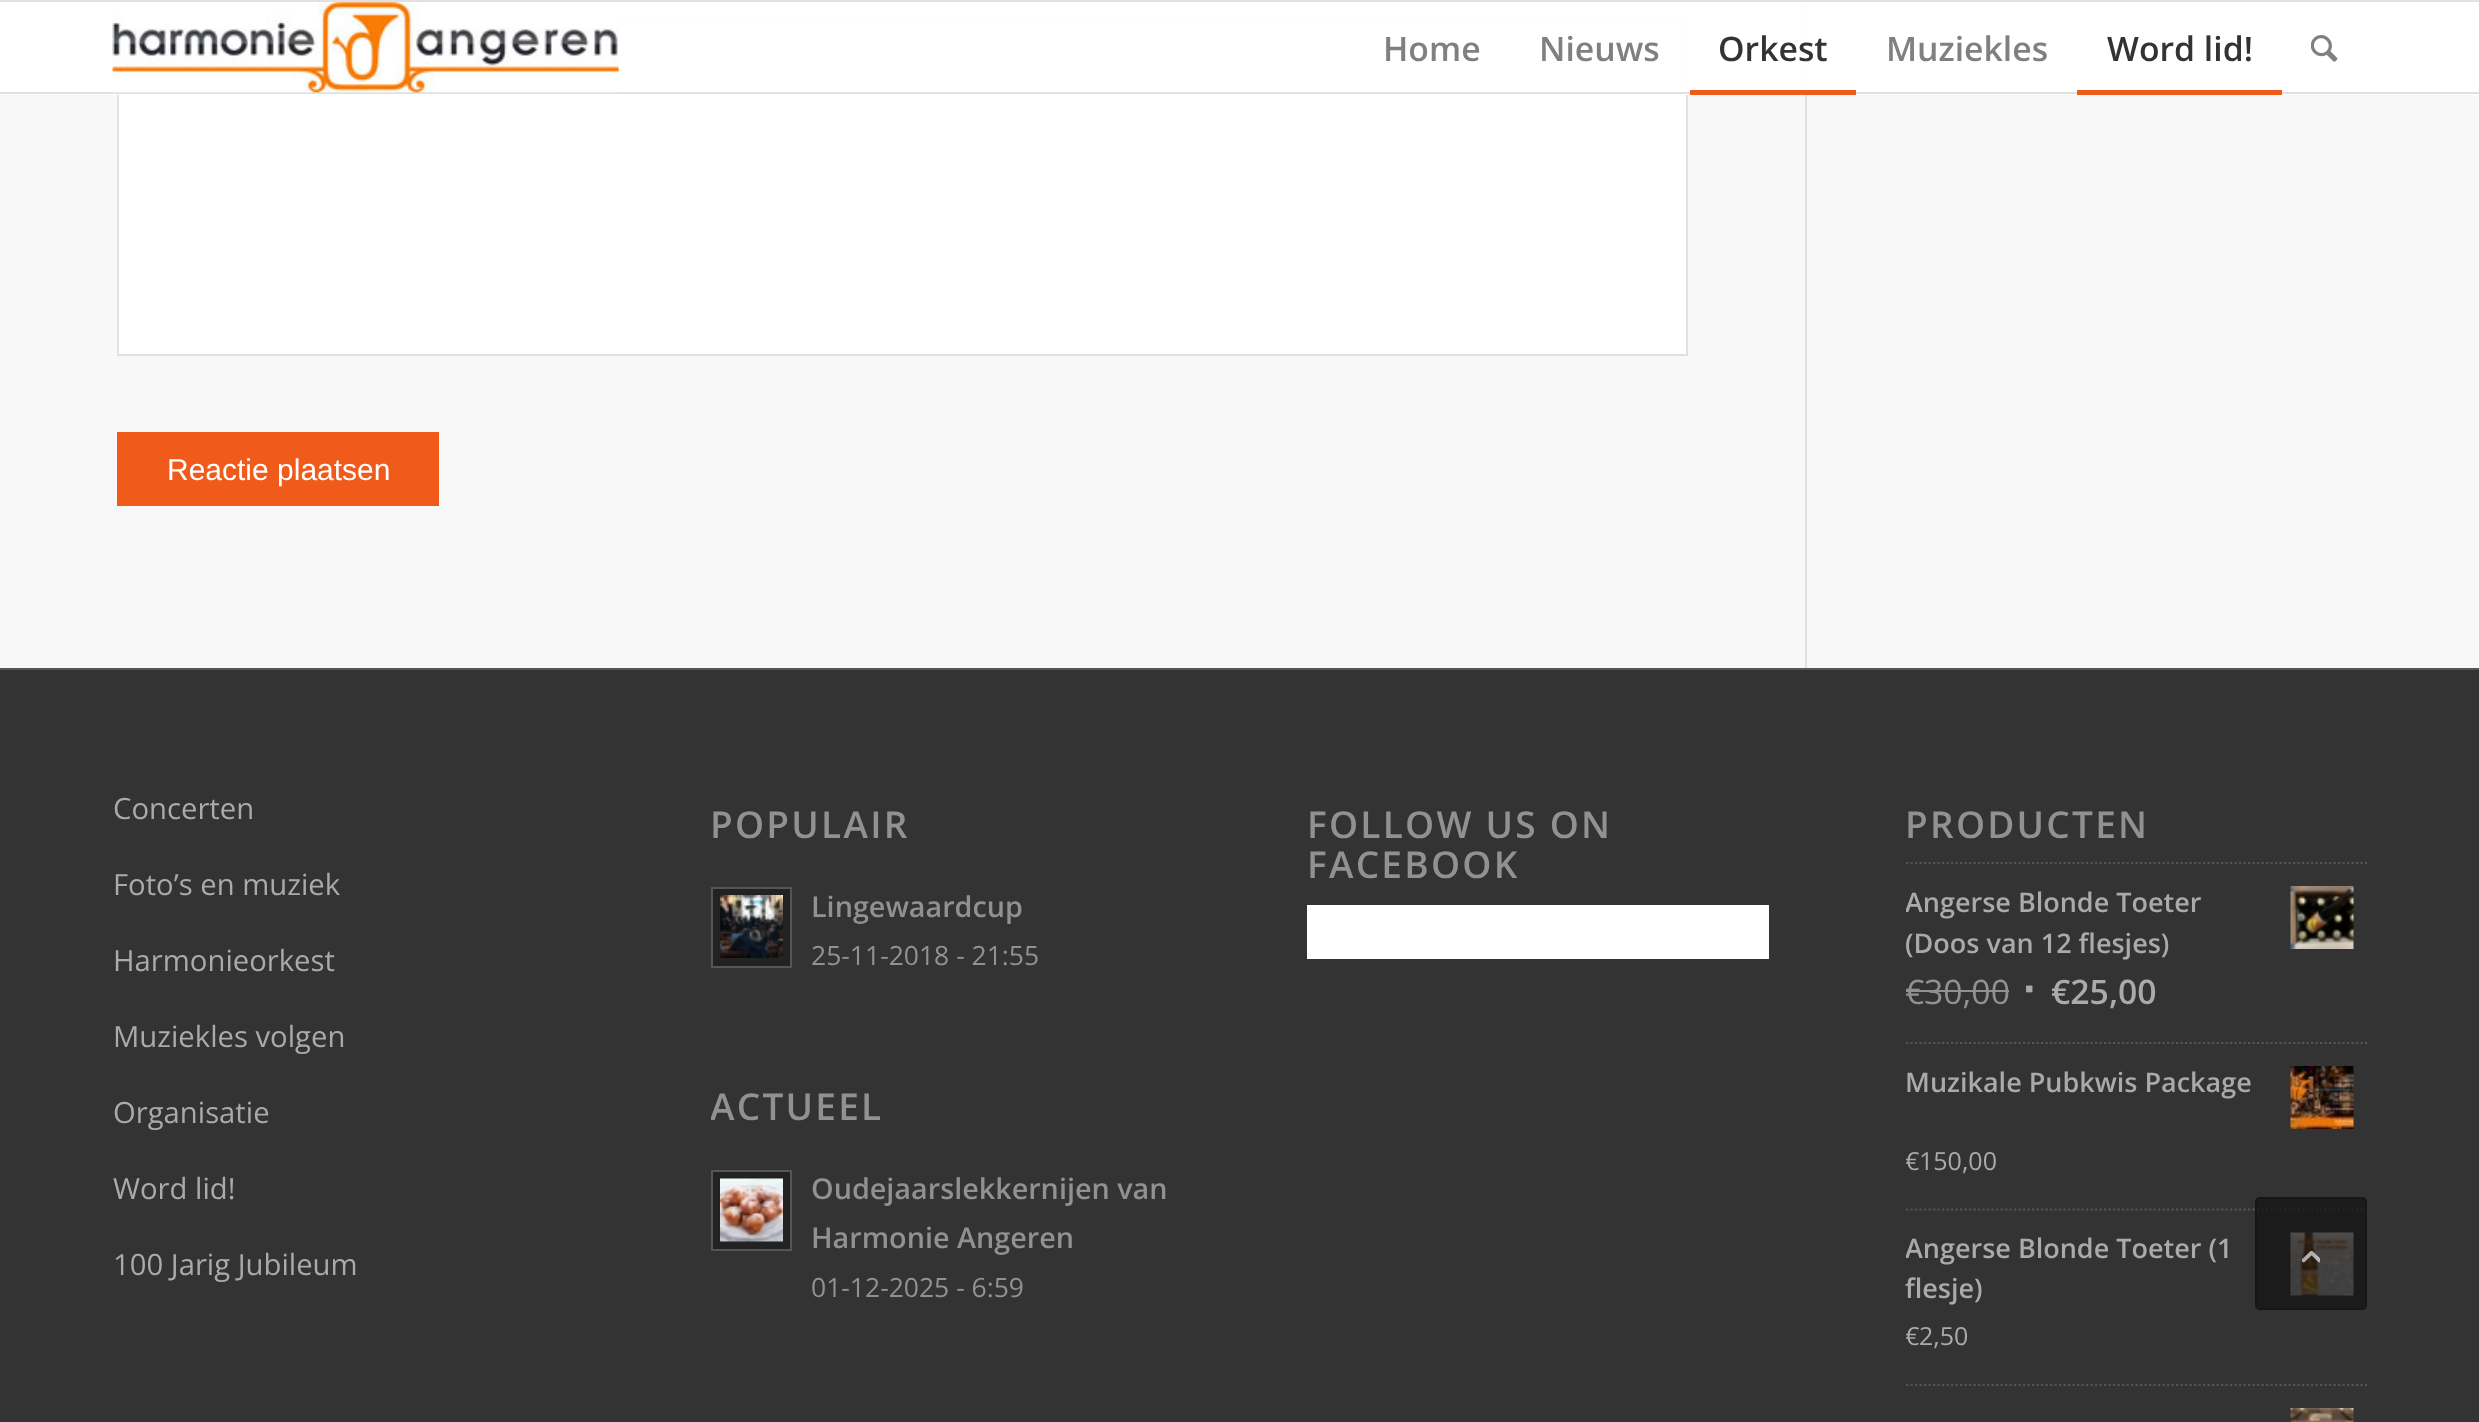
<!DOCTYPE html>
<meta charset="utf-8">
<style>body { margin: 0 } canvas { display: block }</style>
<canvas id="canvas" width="2479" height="1422"></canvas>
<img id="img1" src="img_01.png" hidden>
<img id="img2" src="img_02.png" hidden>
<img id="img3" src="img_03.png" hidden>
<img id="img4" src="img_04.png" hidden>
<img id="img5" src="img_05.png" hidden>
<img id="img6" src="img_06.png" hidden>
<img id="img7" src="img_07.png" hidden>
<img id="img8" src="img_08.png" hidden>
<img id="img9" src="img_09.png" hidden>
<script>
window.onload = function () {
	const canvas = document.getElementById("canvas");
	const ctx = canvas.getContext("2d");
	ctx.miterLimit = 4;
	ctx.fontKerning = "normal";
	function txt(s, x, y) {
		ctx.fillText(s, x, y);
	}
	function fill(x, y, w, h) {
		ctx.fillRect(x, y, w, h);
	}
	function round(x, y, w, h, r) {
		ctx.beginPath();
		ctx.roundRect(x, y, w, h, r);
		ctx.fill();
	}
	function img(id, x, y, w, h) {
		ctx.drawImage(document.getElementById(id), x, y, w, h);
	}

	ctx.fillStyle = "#F8F8F8";
	fill(0, 0, 2479, 1422);
	ctx.fillStyle = "#E1E1E1";
	fill(1805, 0, 2, 668);
	ctx.fillStyle = "#FFFFFF";
	ctx.beginPath();
	ctx.rect(118, 19, 1569, 336);
	ctx.fill();
	ctx.strokeStyle = "#E1E1E1";
	ctx.lineWidth = 2;
	ctx.stroke();
	ctx.fillStyle = "rgba(255, 255, 255, 0.95)";
	fill(0, 2, 2479, 93);
	ctx.fillStyle = "#E1E1E1";
	fill(0, 0, 2479, 2);
	fill(0, 92, 2479, 2);
	img("img1", 112, 2, 507, 91);
	ctx.fillStyle = "#F05A1A";
	fill(1690, 90, 166, 5);
	fill(2077, 90, 205, 5);
	img("img2", 2311, 35, 27, 27);
	fill(117, 432, 322, 74);
	ctx.fillStyle = "#333333";
	fill(0, 670, 2479, 752);
	ctx.fillStyle = "#555555";
	fill(0, 668, 2479, 2);
	ctx.fillStyle = "#222222";
	ctx.beginPath();
	ctx.rect(712, 888, 79, 79);
	ctx.fill();
	ctx.strokeStyle = "#555555";
	ctx.stroke();
	img("img3", 720, 895, 63, 63);
	ctx.beginPath();
	ctx.rect(712, 1171, 79, 79);
	ctx.fill();
	ctx.stroke();
	img("img4", 720, 1178, 63, 64);
	ctx.fillStyle = "#FFFFFF";
	fill(1307, 905, 462, 54);
	ctx.beginPath();
	ctx.moveTo(1906, 863);
	ctx.lineTo(2367, 863);
	ctx.lineWidth = 2.2;
	ctx.setLineDash([2.25, 2.25]);
	ctx.stroke();
	img("img5", 2290, 886, 64, 63);
	ctx.fillStyle = "#919191";
	fill(1906, 990, 18, 2);
	fill(1924, 990, 85, 2);
	ctx.beginPath();
	ctx.moveTo(1906, 1043);
	ctx.lineTo(2367, 1043);
	ctx.stroke();
	img("img6", 2290, 1066, 64, 63);
	ctx.beginPath();
	ctx.moveTo(1906, 1209.5);
	ctx.lineTo(2367, 1209.5);
	ctx.stroke();
	img("img7", 2290, 1232, 64, 64);
	ctx.beginPath();
	ctx.moveTo(1906, 1385);
	ctx.lineTo(2367, 1385);
	ctx.stroke();
	img("img8", 2290, 1408, 64, 14);
	ctx.fillStyle = "rgba(17, 17, 17, 0.7)";
	round(2255, 1197, 112, 113, 5);
	ctx.beginPath();
	ctx.roundRect(2256, 1198, 110, 111, 4);
	ctx.strokeStyle = "rgba(22, 22, 22, 0.7)";
	ctx.lineWidth = 2;
	ctx.setLineDash([]);
	ctx.stroke();
	img("img9", 2302, 1250, 18, 13);
	ctx.font = "600 33.75px Open Sans";
	ctx.fillStyle = "#808080";
	txt("Home", 1383, 61);
	txt("Nieuws", 1539, 61);
	ctx.fillStyle = "#333333";
	txt("Orkest", 1718, 61);
	ctx.fillStyle = "#808080";
	txt("Muziekles", 1886, 61);
	ctx.fillStyle = "#333333";
	txt("Word lid!", 2107, 61);
	ctx.font = "30px Liberation Sans";
	ctx.fillStyle = "#FFFFFF";
	txt("Reactie plaatsen", 167, 480);
	ctx.font = "29.25px Open Sans";
	ctx.fillStyle = "#AAAAAA";
	txt("Concerten", 113, 819);
	txt("Foto’s en muziek", 113, 895);
	txt("Harmonieorkest", 113, 971);
	txt("Muziekles volgen", 113, 1047);
	txt("Organisatie", 113, 1123);
	txt("Word lid!", 113, 1199);
	txt("100 Jarig Jubileum", 113, 1275);
	ctx.letterSpacing = "2.25px";
	ctx.font = "600 37px Open Sans";
	ctx.fillStyle = "#919191";
	txt("POPULAIR", 710, 838);
	ctx.letterSpacing = "0px";
	ctx.font = "600 28.75px Open Sans";
	txt("Lingewaardcup", 811, 917);
	ctx.font = "26.5px Open Sans";
	txt("25-11-2018 - 21:55", 811, 965);
	ctx.save();
	ctx.beginPath();
	ctx.rect(711, 1055, 461, 264);
	ctx.clip();
	ctx.letterSpacing = "2.25px";
	ctx.font = "600 37px Open Sans";
	txt("ACTUEEL", 710, 1120);
	ctx.restore();
	ctx.font = "600 28.75px Open Sans";
	txt("Oudejaarslekkernijen van", 811, 1199);
	txt("Harmonie Angeren", 811, 1248);
	ctx.font = "26.5px Open Sans";
	txt("01-12-2025 - 6:59", 811, 1297);
	ctx.letterSpacing = "2.25px";
	ctx.font = "600 37px Open Sans";
	txt("FOLLOW US ON", 1307, 838);
	txt("FACEBOOK", 1307, 878);
	txt("PRODUCTEN", 1905, 838);
	ctx.save();
	ctx.beginPath();
	ctx.rect(1906, 882, 461, 81);
	ctx.clip();
	ctx.letterSpacing = "0px";
	ctx.font = "600 27px Open Sans";
	ctx.fillStyle = "#AAAAAA";
	txt("Angerse Blonde Toeter", 1905, 912);
	txt("(Doos van 12 flesjes)", 1905, 953);
	ctx.restore();
	ctx.save();
	ctx.beginPath();
	ctx.rect(1906, 864, 461, 178);
	ctx.clip();
	ctx.letterSpacing = "0px";
	ctx.font = "33.75px Open Sans";
	txt("€", 1905, 1004);
	ctx.restore();
	ctx.letterSpacing = "0px";
	ctx.font = "33.75px Open Sans";
	txt("30,00", 1924, 1004);
	ctx.font = "bold 45px Liberation Sans";
	ctx.fillStyle = "#AAAAAA";
	txt("∙", 2023, 1004);
	ctx.font = "600 33.75px Open Sans";
	txt("€25,00", 2051, 1004);
	ctx.font = "600 27px Open Sans";
	txt("Muzikale Pubkwis Package", 1905, 1092);
	ctx.save();
	ctx.beginPath();
	ctx.rect(1906, 1044, 461, 164);
	ctx.clip();
	ctx.font = "25px Open Sans";
	txt("€", 1905, 1170);
	ctx.restore();
	ctx.font = "25px Open Sans";
	txt("150,00", 1919, 1170);
	ctx.save();
	ctx.beginPath();
	ctx.rect(1906, 1229, 461, 81);
	ctx.clip();
	ctx.font = "600 27px Open Sans";
	txt("Angerse Blonde Toeter (1", 1905, 1258);
	ctx.restore();
	ctx.font = "600 27px Open Sans";
	txt("flesje)", 1905, 1298);
	ctx.save();
	ctx.beginPath();
	ctx.rect(1906, 1211, 461, 173);
	ctx.clip();
	ctx.font = "25px Open Sans";
	txt("€", 1905, 1345);
	ctx.restore();
	ctx.font = "25px Open Sans";
	txt("2,50", 1919, 1345);
};
</script>
